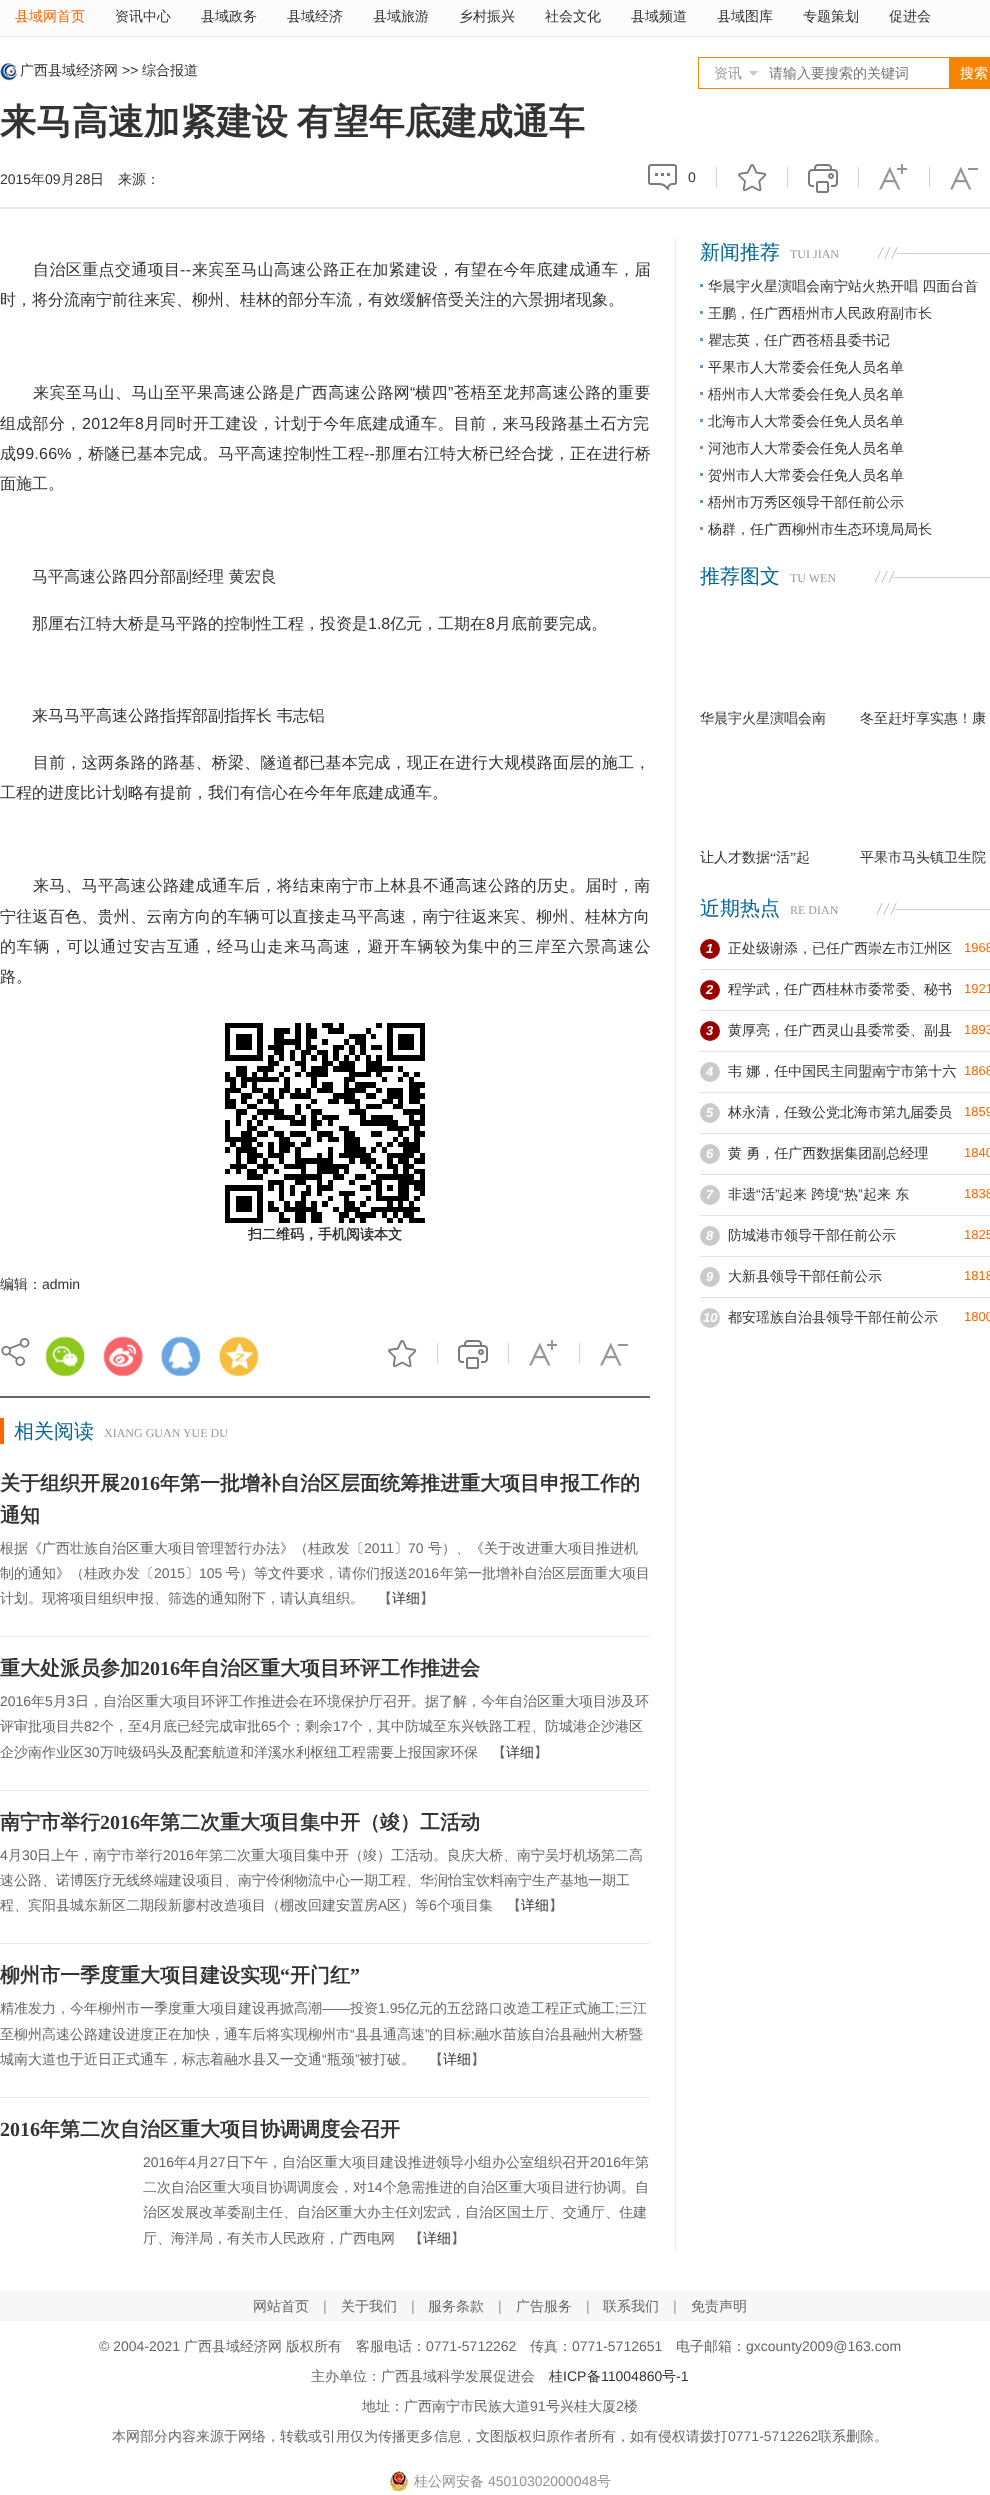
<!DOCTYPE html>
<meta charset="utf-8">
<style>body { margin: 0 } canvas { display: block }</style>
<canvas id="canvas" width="990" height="2495"></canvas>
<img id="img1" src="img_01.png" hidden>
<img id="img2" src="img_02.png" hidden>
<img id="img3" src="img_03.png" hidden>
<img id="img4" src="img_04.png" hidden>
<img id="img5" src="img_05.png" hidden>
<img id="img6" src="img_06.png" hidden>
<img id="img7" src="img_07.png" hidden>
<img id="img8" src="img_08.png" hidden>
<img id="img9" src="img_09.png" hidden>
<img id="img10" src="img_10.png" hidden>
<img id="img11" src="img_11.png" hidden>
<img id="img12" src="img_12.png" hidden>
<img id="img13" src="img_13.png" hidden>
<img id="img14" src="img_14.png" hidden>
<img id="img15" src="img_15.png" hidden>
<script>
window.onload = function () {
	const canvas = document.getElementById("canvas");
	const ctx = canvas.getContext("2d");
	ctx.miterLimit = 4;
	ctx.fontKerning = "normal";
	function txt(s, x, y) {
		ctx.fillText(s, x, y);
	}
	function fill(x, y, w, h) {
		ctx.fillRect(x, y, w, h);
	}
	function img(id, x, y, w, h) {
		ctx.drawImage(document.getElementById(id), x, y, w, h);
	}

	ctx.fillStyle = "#FFFFFF";
	fill(0, 0, 990, 2495);
	ctx.fillStyle = "#FCFCFC";
	fill(0, 0, 990, 36);
	ctx.fillStyle = "#E6E7EA";
	fill(0, 36, 990, 1);
	img("img1", 0, 63, 18, 18);
	ctx.strokeStyle = "#F58400";
	ctx.strokeRect(698.5, 57.5, 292, 31);
	img("img2", 749, 71, 9, 5);
	ctx.fillStyle = "#F58400";
	fill(949, 58, 41, 30);
	ctx.fillStyle = "#EAEAEA";
	fill(0, 207, 990, 2);
	img("img3", 648, 164, 29, 26);
	ctx.fillStyle = "#D0D0D0";
	fill(716, 167, 1, 20);
	img("img4", 738, 164, 29, 28);
	fill(787, 167, 1, 20);
	img("img5", 808, 164, 30, 29);
	fill(858, 167, 1, 20);
	img("img6", 879, 164, 28, 26);
	fill(929, 167, 1, 20);
	img("img7", 950, 167, 28, 23);
	img("img8", 225, 1023, 200, 200);
	img("img9", 1, 1338, 29, 28);
	img("img10", 45, 1336, 40, 40);
	img("img11", 103, 1336, 40, 40);
	img("img12", 161, 1336, 40, 40);
	img("img13", 219, 1336, 40, 40);
	img("img4", 388, 1340, 29, 28);
	fill(437, 1343, 1, 20);
	img("img5", 458, 1340, 30, 29);
	fill(508, 1343, 1, 20);
	img("img6", 529, 1340, 28, 26);
	fill(579, 1343, 1, 20);
	img("img7", 600, 1343, 28, 23);
	ctx.fillStyle = "#666666";
	fill(0, 1396, 650, 2);
	ctx.fillStyle = "#FF6600";
	fill(0, 1418, 4, 26);
	ctx.fillStyle = "#EAEAEA";
	fill(0, 1636, 650, 1);
	fill(0, 1790, 650, 1);
	fill(0, 1943, 650, 1);
	fill(0, 2097, 650, 1);
	fill(675, 239, 1, 2012);
	ctx.fillStyle = "#C5D1D5";
	fill(899, 253, 91, 1);
	img("img14", 877, 247, 22, 12);
	ctx.fillStyle = "#7195B7";
	fill(700, 284, 3, 3);
	fill(700, 311, 3, 3);
	fill(700, 338, 3, 3);
	fill(700, 365, 3, 3);
	fill(700, 392, 3, 3);
	fill(700, 419, 3, 3);
	fill(700, 446, 3, 3);
	fill(700, 473, 3, 3);
	fill(700, 500, 3, 3);
	fill(700, 527, 3, 3);
	ctx.fillStyle = "#C5D1D5";
	fill(896, 577, 94, 1);
	img("img14", 874, 571, 22, 12);
	fill(898, 909, 92, 1);
	img("img14", 876, 903, 22, 12);
	ctx.fillStyle = "#990000";
	ctx.beginPath();
	ctx.arc(710, 949, 10, 0, Math.PI * 2);
	ctx.fill();
	ctx.fillStyle = "#E3E3E3";
	fill(700, 969, 290, 1);
	ctx.fillStyle = "#990000";
	ctx.beginPath();
	ctx.arc(710, 990, 10, 0, Math.PI * 2);
	ctx.fill();
	ctx.fillStyle = "#E3E3E3";
	fill(700, 1010, 290, 1);
	ctx.fillStyle = "#990000";
	ctx.beginPath();
	ctx.arc(710, 1031, 10, 0, Math.PI * 2);
	ctx.fill();
	ctx.fillStyle = "#E3E3E3";
	fill(700, 1051, 290, 1);
	ctx.fillStyle = "#CACACA";
	ctx.beginPath();
	ctx.arc(710, 1072, 10, 0, Math.PI * 2);
	ctx.fill();
	ctx.fillStyle = "#E3E3E3";
	fill(700, 1092, 290, 1);
	ctx.fillStyle = "#CACACA";
	ctx.beginPath();
	ctx.arc(710, 1113, 10, 0, Math.PI * 2);
	ctx.fill();
	ctx.fillStyle = "#E3E3E3";
	fill(700, 1133, 290, 1);
	ctx.fillStyle = "#CACACA";
	ctx.beginPath();
	ctx.arc(710, 1154, 10, 0, Math.PI * 2);
	ctx.fill();
	ctx.fillStyle = "#E3E3E3";
	fill(700, 1174, 290, 1);
	ctx.fillStyle = "#CACACA";
	ctx.beginPath();
	ctx.arc(710, 1195, 10, 0, Math.PI * 2);
	ctx.fill();
	ctx.fillStyle = "#E3E3E3";
	fill(700, 1215, 290, 1);
	ctx.fillStyle = "#CACACA";
	ctx.beginPath();
	ctx.arc(710, 1236, 10, 0, Math.PI * 2);
	ctx.fill();
	ctx.fillStyle = "#E3E3E3";
	fill(700, 1256, 290, 1);
	ctx.fillStyle = "#CACACA";
	ctx.beginPath();
	ctx.arc(710, 1277, 10, 0, Math.PI * 2);
	ctx.fill();
	ctx.fillStyle = "#E3E3E3";
	fill(700, 1297, 290, 1);
	ctx.fillStyle = "#CACACA";
	ctx.beginPath();
	ctx.arc(710, 1318, 10, 0, Math.PI * 2);
	ctx.fill();
	ctx.fillStyle = "#F7F7F7";
	fill(0, 2291, 990, 30);
	img("img15", 390, 2471, 18, 20);
	ctx.font = "500 14px WenQuanYi Zen Hei";
	ctx.fillStyle = "#FF6600";
	txt("县域网首页", 15, 21);
	ctx.fillStyle = "#333333";
	txt("资讯中心", 115, 21);
	txt("县域政务", 201, 21);
	txt("县域经济", 287, 21);
	txt("县域旅游", 373, 21);
	txt("乡村振兴", 459, 21);
	txt("社会文化", 545, 21);
	txt("县域频道", 631, 21);
	txt("县域图库", 717, 21);
	txt("专题策划", 803, 21);
	txt("促进会", 889, 21);
	txt("广西县域经济网", 20, 75);
	ctx.font = "14px Liberation Sans";
	txt(">>", 122, 75);
	ctx.font = "500 14px WenQuanYi Zen Hei";
	txt("综合报道", 142, 75);
	ctx.fillStyle = "#999999";
	txt("资讯", 714, 78);
	ctx.fillStyle = "#757575";
	txt("请输入要搜索的关键词", 769, 78);
	ctx.fillStyle = "#FFFFFF";
	txt("搜索", 960, 78);
	ctx.wordSpacing = "-2px";
	ctx.font = "bold 36px WenQuanYi Zen Hei";
	ctx.fillStyle = "#333333";
	txt("来马高速加紧建设 有望年底建成通车", 0, 134);
	ctx.wordSpacing = "0px";
	ctx.font = "14px Liberation Sans";
	txt("2015", 0, 184);
	ctx.font = "500 14px WenQuanYi Zen Hei";
	txt("年", 31, 184);
	ctx.font = "14px Liberation Sans";
	txt("09", 45, 184);
	ctx.font = "500 14px WenQuanYi Zen Hei";
	txt("月", 61, 184);
	ctx.font = "14px Liberation Sans";
	txt("28", 75, 184);
	ctx.font = "500 14px WenQuanYi Zen Hei";
	txt("日　来源：", 90, 184);
	ctx.font = "14px Liberation Sans";
	txt("0", 688, 182);
	ctx.letterSpacing = "0.4px";
	ctx.font = "500 16px WenQuanYi Zen Hei";
	txt("自治区重点交通项目", 33, 275);
	ctx.font = "16px Liberation Sans";
	txt("--", 180, 275);
	ctx.font = "500 16px WenQuanYi Zen Hei";
	txt("来宾至马山高速公路正在加紧建设，有望在今年底建成通车，届", 192, 275);
	ctx.letterSpacing = "0px";
	txt("时，将分流南宁前往来宾、柳州、桂林的部分车流，有效缓解倍受关注的六景拥堵现象。", 0, 305);
	ctx.letterSpacing = "0.4px";
	txt("来宾至马山、马山至平果高速公路是广西高速公路网", 33, 398);
	ctx.font = "16px Liberation Sans";
	txt("“", 410, 398);
	ctx.font = "500 16px WenQuanYi Zen Hei";
	txt("横四", 415, 398);
	ctx.font = "16px Liberation Sans";
	txt("”", 448, 398);
	ctx.font = "500 16px WenQuanYi Zen Hei";
	txt("苍梧至龙邦高速公路的重要", 454, 398);
	ctx.letterSpacing = "0.3px";
	txt("组成部分，", 0, 429);
	ctx.font = "16px Liberation Sans";
	txt("2012", 82, 429);
	ctx.font = "500 16px WenQuanYi Zen Hei";
	txt("年", 119, 429);
	ctx.font = "16px Liberation Sans";
	txt("8", 135, 429);
	ctx.font = "500 16px WenQuanYi Zen Hei";
	txt("月同时开工建设，计划于今年底建成通车。目前，来马段路基土石方完", 144, 429);
	ctx.letterSpacing = "0.25px";
	txt("成", 0, 459);
	ctx.font = "16px Liberation Sans";
	txt("99.66%", 16, 459);
	ctx.font = "500 16px WenQuanYi Zen Hei";
	txt("，桥隧已基本完成。马平高速控制性工程", 72, 459);
	ctx.font = "16px Liberation Sans";
	txt("--", 364, 459);
	ctx.font = "500 16px WenQuanYi Zen Hei";
	txt("那厘右江特大桥已经合拢，正在进行桥", 375, 459);
	ctx.letterSpacing = "0px";
	txt("面施工。", 0, 489);
	txt("马平高速公路四分部副经理 黄宏良", 32, 582);
	txt("那厘右江特大桥是马平路的控制性工程，投资是", 32, 629);
	ctx.font = "16px Liberation Sans";
	txt("1.8", 368, 629);
	ctx.font = "500 16px WenQuanYi Zen Hei";
	txt("亿元，工期在", 390, 629);
	ctx.font = "16px Liberation Sans";
	txt("8", 486, 629);
	ctx.font = "500 16px WenQuanYi Zen Hei";
	txt("月底前要完成。", 495, 629);
	txt("来马马平高速公路指挥部副指挥长 韦志铝", 32, 721);
	ctx.letterSpacing = "0.25px";
	txt("目前，这两条路的路基、桥梁、隧道都已基本完成，现正在进行大规模路面层的施工，", 33, 768);
	ctx.letterSpacing = "0px";
	txt("工程的进度比计划略有提前，我们有信心在今年年底建成通车。", 0, 798);
	ctx.letterSpacing = "0.25px";
	txt("来马、马平高速公路建成通车后，将结束南宁市上林县不通高速公路的历史。届时，南", 33, 891);
	txt("宁往返百色、贵州、云南方向的车辆可以直接走马平高速，南宁往返来宾、柳州、桂林方向", 0, 922);
	ctx.letterSpacing = "0.7px";
	txt("的车辆，可以通过安吉互通，经马山走来马高速，避开车辆较为集中的三岸至六景高速公", 0, 952);
	ctx.letterSpacing = "0px";
	txt("路。", 0, 982);
	ctx.font = "bold 14px WenQuanYi Zen Hei";
	txt("扫二维码，手机阅读本文", 248, 1239);
	ctx.font = "500 14px WenQuanYi Zen Hei";
	txt("编辑：", 0, 1289);
	ctx.font = "14px Liberation Sans";
	txt("admin", 42, 1289);
	ctx.font = "500 20px WenQuanYi Zen Hei";
	ctx.fillStyle = "#006699";
	txt("相关阅读", 14, 1438);
	ctx.font = "12px Liberation Serif";
	ctx.fillStyle = "#999999";
	txt("XIANG GUAN YUE DU", 104, 1437);
	ctx.font = "bold 20px WenQuanYi Zen Hei";
	ctx.fillStyle = "#333333";
	txt("关于组织开展", 0, 1490);
	ctx.font = "bold 20px Liberation Serif";
	txt("2016", 120, 1490);
	ctx.font = "bold 20px WenQuanYi Zen Hei";
	txt("年第一批增补自治区层面统筹推进重大项目申报工作的", 160, 1490);
	txt("通知", 0, 1522);
	ctx.font = "500 14px WenQuanYi Zen Hei";
	ctx.fillStyle = "#666666";
	txt("根据《广西壮族自治区重大项目管理暂行办法》（桂政发〔", 0, 1553);
	ctx.font = "14px Liberation Sans";
	txt("2011", 364, 1553);
	ctx.font = "500 14px WenQuanYi Zen Hei";
	txt("〕", 394, 1553);
	ctx.font = "14px Liberation Sans";
	txt("70", 408, 1553);
	ctx.font = "500 14px WenQuanYi Zen Hei";
	txt("号）、《关于改进重大项目推进机", 428, 1553);
	txt("制的通知》（桂政办发〔", 0, 1578);
	ctx.font = "14px Liberation Sans";
	txt("2015", 154, 1578);
	ctx.font = "500 14px WenQuanYi Zen Hei";
	txt("〕", 185, 1578);
	ctx.font = "14px Liberation Sans";
	txt("105", 199, 1578);
	ctx.font = "500 14px WenQuanYi Zen Hei";
	txt("号）等文件要求，请你们报送", 226, 1578);
	ctx.font = "14px Liberation Sans";
	txt("2016", 408, 1578);
	ctx.font = "500 14px WenQuanYi Zen Hei";
	txt("年第一批增补自治区层面重大项目", 440, 1578);
	txt("计划。现将项目组织申报、筛选的通知附下，请认真组织。　【", 0, 1603);
	ctx.fillStyle = "#333333";
	txt("详细", 392, 1603);
	ctx.fillStyle = "#666666";
	txt("】", 420, 1603);
	ctx.font = "bold 20px WenQuanYi Zen Hei";
	ctx.fillStyle = "#333333";
	txt("重大处派员参加", 0, 1675);
	ctx.font = "bold 20px Liberation Serif";
	txt("2016", 140, 1675);
	ctx.font = "bold 20px WenQuanYi Zen Hei";
	txt("年自治区重大项目环评工作推进会", 180, 1675);
	ctx.font = "14px Liberation Sans";
	ctx.fillStyle = "#666666";
	txt("2016", 0, 1706);
	ctx.font = "500 14px WenQuanYi Zen Hei";
	txt("年", 31, 1706);
	ctx.font = "14px Liberation Sans";
	txt("5", 45, 1706);
	ctx.font = "500 14px WenQuanYi Zen Hei";
	txt("月", 53, 1706);
	ctx.font = "14px Liberation Sans";
	txt("3", 67, 1706);
	ctx.font = "500 14px WenQuanYi Zen Hei";
	txt("日，自治区重大项目环评工作推进会在环境保护厅召开。据了解，今年自治区重大项目涉及环", 75, 1706);
	txt("评审批项目共", 0, 1731);
	ctx.font = "14px Liberation Sans";
	txt("82", 84, 1731);
	ctx.font = "500 14px WenQuanYi Zen Hei";
	txt("个，至", 100, 1731);
	ctx.font = "14px Liberation Sans";
	txt("4", 142, 1731);
	ctx.font = "500 14px WenQuanYi Zen Hei";
	txt("月底已经完成审批", 149, 1731);
	ctx.font = "14px Liberation Sans";
	txt("65", 261, 1731);
	ctx.font = "500 14px WenQuanYi Zen Hei";
	txt("个；剩余", 277, 1731);
	ctx.font = "14px Liberation Sans";
	txt("17", 333, 1731);
	ctx.font = "500 14px WenQuanYi Zen Hei";
	txt("个，其中防城至东兴铁路工程、防城港企沙港区", 349, 1731);
	txt("企沙南作业区", 0, 1757);
	ctx.font = "14px Liberation Sans";
	txt("30", 84, 1757);
	ctx.font = "500 14px WenQuanYi Zen Hei";
	txt("万吨级码头及配套航道和洋溪水利枢纽工程需要上报国家环保　【", 100, 1757);
	ctx.fillStyle = "#333333";
	txt("详细", 506, 1757);
	ctx.fillStyle = "#666666";
	txt("】", 534, 1757);
	ctx.font = "bold 20px WenQuanYi Zen Hei";
	ctx.fillStyle = "#333333";
	txt("南宁市举行", 0, 1829);
	ctx.font = "bold 20px Liberation Serif";
	txt("2016", 100, 1829);
	ctx.font = "bold 20px WenQuanYi Zen Hei";
	txt("年第二次重大项目集中开（竣）工活动", 140, 1829);
	ctx.font = "14px Liberation Sans";
	ctx.fillStyle = "#666666";
	txt("4", 0, 1860);
	ctx.font = "500 14px WenQuanYi Zen Hei";
	txt("月", 8, 1860);
	ctx.font = "14px Liberation Sans";
	txt("30", 22, 1860);
	ctx.font = "500 14px WenQuanYi Zen Hei";
	txt("日上午，南宁市举行", 37, 1860);
	ctx.font = "14px Liberation Sans";
	txt("2016", 163, 1860);
	ctx.font = "500 14px WenQuanYi Zen Hei";
	txt("年第二次重大项目集中开（竣）工活动。良庆大桥、南宁吴圩机场第二高", 195, 1860);
	txt("速公路、诺博医疗无线终端建设项目、南宁伶俐物流中心一期工程、华润怡宝饮料南宁生产基地一期工", 0, 1885);
	txt("程、宾阳县城东新区二期段新廖村改造项目（棚改回建安置房", 0, 1910);
	ctx.font = "14px Liberation Sans";
	txt("A", 378, 1910);
	ctx.font = "500 14px WenQuanYi Zen Hei";
	txt("区）等", 387, 1910);
	ctx.font = "14px Liberation Sans";
	txt("6", 429, 1910);
	ctx.font = "500 14px WenQuanYi Zen Hei";
	txt("个项目集　【", 437, 1910);
	ctx.fillStyle = "#333333";
	txt("详细", 521, 1910);
	ctx.fillStyle = "#666666";
	txt("】", 549, 1910);
	ctx.font = "bold 20px WenQuanYi Zen Hei";
	ctx.fillStyle = "#333333";
	txt("柳州市一季度重大项目建设实现", 0, 1982);
	ctx.font = "bold 20px Liberation Serif";
	txt("“", 280, 1982);
	ctx.font = "bold 20px WenQuanYi Zen Hei";
	txt("开门红", 290, 1982);
	ctx.font = "bold 20px Liberation Serif";
	txt("”", 350, 1982);
	ctx.font = "500 14px WenQuanYi Zen Hei";
	ctx.fillStyle = "#666666";
	txt("精准发力，今年柳州市一季度重大项目建设再掀高潮", 0, 2013);
	ctx.font = "14px Liberation Sans";
	txt("——", 322, 2013);
	ctx.font = "500 14px WenQuanYi Zen Hei";
	txt("投资", 350, 2013);
	ctx.font = "14px Liberation Sans";
	txt("1.95", 378, 2013);
	ctx.font = "500 14px WenQuanYi Zen Hei";
	txt("亿元的五岔路口改造工程正式施工", 405, 2013);
	ctx.font = "14px Liberation Sans";
	txt(";", 615, 2013);
	ctx.font = "500 14px WenQuanYi Zen Hei";
	txt("三江", 619, 2013);
	txt("至柳州高速公路建设进度正在加快，通车后将实现柳州市", 0, 2039);
	ctx.font = "14px Liberation Sans";
	txt("“", 350, 2039);
	ctx.font = "500 14px WenQuanYi Zen Hei";
	txt("县县通高速", 355, 2039);
	ctx.font = "14px Liberation Sans";
	txt("”", 425, 2039);
	ctx.font = "500 14px WenQuanYi Zen Hei";
	txt("的目标", 429, 2039);
	ctx.font = "14px Liberation Sans";
	txt(";", 471, 2039);
	ctx.font = "500 14px WenQuanYi Zen Hei";
	txt("融水苗族自治县融州大桥暨", 475, 2039);
	txt("城南大道也于近日正式通车，标志着融水县又一交通", 0, 2064);
	ctx.font = "14px Liberation Sans";
	txt("“", 322, 2064);
	ctx.font = "500 14px WenQuanYi Zen Hei";
	txt("瓶颈", 327, 2064);
	ctx.font = "14px Liberation Sans";
	txt("”", 355, 2064);
	ctx.font = "500 14px WenQuanYi Zen Hei";
	txt("被打破。　【", 359, 2064);
	ctx.fillStyle = "#333333";
	txt("详细", 443, 2064);
	ctx.fillStyle = "#666666";
	txt("】", 471, 2064);
	ctx.font = "bold 20px Liberation Serif";
	ctx.fillStyle = "#333333";
	txt("2016", 0, 2136);
	ctx.font = "bold 20px WenQuanYi Zen Hei";
	txt("年第二次自治区重大项目协调调度会召开", 40, 2136);
	ctx.font = "14px Liberation Sans";
	ctx.fillStyle = "#666666";
	txt("2016", 143, 2167);
	ctx.font = "500 14px WenQuanYi Zen Hei";
	txt("年", 174, 2167);
	ctx.font = "14px Liberation Sans";
	txt("4", 188, 2167);
	ctx.font = "500 14px WenQuanYi Zen Hei";
	txt("月", 196, 2167);
	ctx.font = "14px Liberation Sans";
	txt("27", 210, 2167);
	ctx.font = "500 14px WenQuanYi Zen Hei";
	txt("日下午，自治区重大项目建设推进领导小组办公室组织召开", 226, 2167);
	ctx.font = "14px Liberation Sans";
	txt("2016", 590, 2167);
	ctx.font = "500 14px WenQuanYi Zen Hei";
	txt("年第", 621, 2167);
	txt("二次自治区重大项目协调调度会，对", 143, 2192);
	ctx.font = "14px Liberation Sans";
	txt("14", 367, 2192);
	ctx.font = "500 14px WenQuanYi Zen Hei";
	txt("个急需推进的自治区重大项目进行协调。自", 383, 2192);
	txt("治区发展改革委副主任、自治区重大办主任刘宏武，自治区国土厅、交通厅、住建", 143, 2217);
	txt("厅、海洋局，有关市人民政府，广西电网　【", 143, 2243);
	ctx.fillStyle = "#333333";
	txt("详细", 423, 2243);
	ctx.fillStyle = "#666666";
	txt("】", 451, 2243);
	ctx.font = "500 20px WenQuanYi Zen Hei";
	ctx.fillStyle = "#006699";
	txt("新闻推荐", 700, 259);
	ctx.font = "12px Liberation Serif";
	ctx.fillStyle = "#999999";
	txt("TUI JIAN", 790, 258);
	ctx.font = "500 14px WenQuanYi Zen Hei";
	ctx.fillStyle = "#333333";
	txt("华晨宇火星演唱会南宁站火热开唱 四面台首", 708, 291);
	txt("王鹏，任广西梧州市人民政府副市长", 708, 318);
	txt("瞿志英，任广西苍梧县委书记", 708, 345);
	txt("平果市人大常委会任免人员名单", 708, 372);
	txt("梧州市人大常委会任免人员名单", 708, 399);
	txt("北海市人大常委会任免人员名单", 708, 426);
	txt("河池市人大常委会任免人员名单", 708, 453);
	txt("贺州市人大常委会任免人员名单", 708, 480);
	txt("梧州市万秀区领导干部任前公示", 708, 507);
	txt("杨群，任广西柳州市生态环境局局长", 708, 534);
	ctx.font = "500 20px WenQuanYi Zen Hei";
	ctx.fillStyle = "#006699";
	txt("推荐图文", 700, 583);
	ctx.font = "12px Liberation Serif";
	ctx.fillStyle = "#999999";
	txt("TU WEN", 790, 582);
	ctx.font = "500 14px WenQuanYi Zen Hei";
	ctx.fillStyle = "#333333";
	txt("华晨宇火星演唱会南", 700, 723);
	txt("冬至赶圩享实惠！康", 860, 723);
	txt("让人才数据", 700, 862);
	ctx.font = "14px Liberation Serif";
	txt("“", 770, 862);
	ctx.font = "500 14px WenQuanYi Zen Hei";
	txt("活", 776, 862);
	ctx.font = "14px Liberation Serif";
	txt("”", 790, 862);
	ctx.font = "500 14px WenQuanYi Zen Hei";
	txt("起", 796, 862);
	txt("平果市马头镇卫生院", 860, 862);
	ctx.font = "500 20px WenQuanYi Zen Hei";
	ctx.fillStyle = "#006699";
	txt("近期热点", 700, 915);
	ctx.font = "12px Liberation Serif";
	ctx.fillStyle = "#999999";
	txt("RE DIAN", 790, 914);
	ctx.font = "italic bold 13px Liberation Sans";
	ctx.fillStyle = "#FFFFFF";
	txt("1", 706, 953);
	ctx.font = "500 14px WenQuanYi Zen Hei";
	ctx.fillStyle = "#333333";
	txt("正处级谢添，已任广西崇左市江州区", 728, 953);
	ctx.font = "13px Liberation Sans";
	ctx.fillStyle = "#FF6600";
	txt("1968", 964, 952);
	ctx.font = "italic bold 13px Liberation Sans";
	ctx.fillStyle = "#FFFFFF";
	txt("2", 706, 994);
	ctx.font = "500 14px WenQuanYi Zen Hei";
	ctx.fillStyle = "#333333";
	txt("程学武，任广西桂林市委常委、秘书", 728, 994);
	ctx.font = "13px Liberation Sans";
	ctx.fillStyle = "#FF6600";
	txt("1921", 964, 993);
	ctx.font = "italic bold 13px Liberation Sans";
	ctx.fillStyle = "#FFFFFF";
	txt("3", 706, 1035);
	ctx.font = "500 14px WenQuanYi Zen Hei";
	ctx.fillStyle = "#333333";
	txt("黄厚亮，任广西灵山县委常委、副县", 728, 1035);
	ctx.font = "13px Liberation Sans";
	ctx.fillStyle = "#FF6600";
	txt("1893", 964, 1034);
	ctx.font = "italic bold 13px Liberation Sans";
	ctx.fillStyle = "#FFFFFF";
	txt("4", 706, 1076);
	ctx.font = "500 14px WenQuanYi Zen Hei";
	ctx.fillStyle = "#333333";
	txt("韦 娜，任中国民主同盟南宁市第十六", 728, 1076);
	ctx.font = "13px Liberation Sans";
	ctx.fillStyle = "#FF6600";
	txt("1868", 964, 1075);
	ctx.font = "italic bold 13px Liberation Sans";
	ctx.fillStyle = "#FFFFFF";
	txt("5", 706, 1117);
	ctx.font = "500 14px WenQuanYi Zen Hei";
	ctx.fillStyle = "#333333";
	txt("林永清，任致公党北海市第九届委员", 728, 1117);
	ctx.font = "13px Liberation Sans";
	ctx.fillStyle = "#FF6600";
	txt("1859", 964, 1116);
	ctx.font = "italic bold 13px Liberation Sans";
	ctx.fillStyle = "#FFFFFF";
	txt("6", 706, 1158);
	ctx.font = "500 14px WenQuanYi Zen Hei";
	ctx.fillStyle = "#333333";
	txt("黄 勇，任广西数据集团副总经理", 728, 1158);
	ctx.font = "13px Liberation Sans";
	ctx.fillStyle = "#FF6600";
	txt("1840", 964, 1157);
	ctx.font = "italic bold 13px Liberation Sans";
	ctx.fillStyle = "#FFFFFF";
	txt("7", 706, 1199);
	ctx.font = "500 14px WenQuanYi Zen Hei";
	ctx.fillStyle = "#333333";
	txt("非遗", 728, 1199);
	ctx.font = "14px Liberation Sans";
	txt("“", 756, 1199);
	ctx.font = "500 14px WenQuanYi Zen Hei";
	txt("活", 761, 1199);
	ctx.font = "14px Liberation Sans";
	txt("”", 775, 1199);
	ctx.font = "500 14px WenQuanYi Zen Hei";
	txt("起来 跨境", 779, 1199);
	ctx.font = "14px Liberation Sans";
	txt("“", 839, 1199);
	ctx.font = "500 14px WenQuanYi Zen Hei";
	txt("热", 844, 1199);
	ctx.font = "14px Liberation Sans";
	txt("”", 858, 1199);
	ctx.font = "500 14px WenQuanYi Zen Hei";
	txt("起来 东", 863, 1199);
	ctx.font = "13px Liberation Sans";
	ctx.fillStyle = "#FF6600";
	txt("1838", 964, 1198);
	ctx.font = "italic bold 13px Liberation Sans";
	ctx.fillStyle = "#FFFFFF";
	txt("8", 706, 1240);
	ctx.font = "500 14px WenQuanYi Zen Hei";
	ctx.fillStyle = "#333333";
	txt("防城港市领导干部任前公示", 728, 1240);
	ctx.font = "13px Liberation Sans";
	ctx.fillStyle = "#FF6600";
	txt("1825", 964, 1239);
	ctx.font = "italic bold 13px Liberation Sans";
	ctx.fillStyle = "#FFFFFF";
	txt("9", 706, 1281);
	ctx.font = "500 14px WenQuanYi Zen Hei";
	ctx.fillStyle = "#333333";
	txt("大新县领导干部任前公示", 728, 1281);
	ctx.font = "13px Liberation Sans";
	ctx.fillStyle = "#FF6600";
	txt("1818", 964, 1280);
	ctx.font = "italic bold 13px Liberation Sans";
	ctx.fillStyle = "#FFFFFF";
	txt("10", 703, 1322);
	ctx.font = "500 14px WenQuanYi Zen Hei";
	ctx.fillStyle = "#333333";
	txt("都安瑶族自治县领导干部任前公示", 728, 1322);
	ctx.font = "13px Liberation Sans";
	ctx.fillStyle = "#FF6600";
	txt("1800", 964, 1321);
	ctx.font = "500 14px WenQuanYi Zen Hei";
	ctx.fillStyle = "#666666";
	txt("网站首页", 253, 2311);
	ctx.font = "14px Liberation Sans";
	ctx.fillStyle = "#999999";
	txt("|", 323, 2311);
	ctx.font = "500 14px WenQuanYi Zen Hei";
	ctx.fillStyle = "#666666";
	txt("关于我们", 341, 2311);
	ctx.font = "14px Liberation Sans";
	ctx.fillStyle = "#999999";
	txt("|", 411, 2311);
	ctx.font = "500 14px WenQuanYi Zen Hei";
	ctx.fillStyle = "#666666";
	txt("服务条款", 428, 2311);
	ctx.font = "14px Liberation Sans";
	ctx.fillStyle = "#999999";
	txt("|", 498, 2311);
	ctx.font = "500 14px WenQuanYi Zen Hei";
	ctx.fillStyle = "#666666";
	txt("广告服务", 516, 2311);
	ctx.font = "14px Liberation Sans";
	ctx.fillStyle = "#999999";
	txt("|", 586, 2311);
	ctx.font = "500 14px WenQuanYi Zen Hei";
	ctx.fillStyle = "#666666";
	txt("联系我们", 603, 2311);
	ctx.font = "14px Liberation Sans";
	ctx.fillStyle = "#999999";
	txt("|", 673, 2311);
	ctx.font = "500 14px WenQuanYi Zen Hei";
	ctx.fillStyle = "#666666";
	txt("免责声明", 691, 2311);
	ctx.font = "14px Liberation Sans";
	txt("© 2004-2021", 99, 2351);
	ctx.font = "500 14px WenQuanYi Zen Hei";
	txt("广西县域经济网", 184, 2351);
	txt("版权所有　客服电话：", 286, 2351);
	ctx.font = "14px Liberation Sans";
	txt("0771-5712262", 426, 2351);
	ctx.font = "500 14px WenQuanYi Zen Hei";
	txt("传真：", 530, 2351);
	ctx.font = "14px Liberation Sans";
	txt("0771-5712651", 572, 2351);
	ctx.font = "500 14px WenQuanYi Zen Hei";
	txt("电子邮箱：", 676, 2351);
	ctx.font = "14px Liberation Sans";
	txt("gxcounty2009@163.com", 746, 2351);
	ctx.font = "500 14px WenQuanYi Zen Hei";
	txt("主办单位：广西县域科学发展促进会", 311, 2381);
	ctx.fillStyle = "#333333";
	txt("桂", 549, 2381);
	ctx.font = "14px Liberation Sans";
	txt("ICP", 563, 2381);
	ctx.font = "500 14px WenQuanYi Zen Hei";
	txt("备", 587, 2381);
	ctx.font = "14px Liberation Sans";
	txt("11004860", 601, 2381);
	ctx.font = "500 14px WenQuanYi Zen Hei";
	txt("号", 662, 2381);
	ctx.font = "14px Liberation Sans";
	txt("-1", 676, 2381);
	ctx.font = "500 14px WenQuanYi Zen Hei";
	ctx.fillStyle = "#666666";
	txt("地址：广西南宁市民族大道", 362, 2411);
	ctx.font = "14px Liberation Sans";
	txt("91", 530, 2411);
	ctx.font = "500 14px WenQuanYi Zen Hei";
	txt("号兴桂大厦", 546, 2411);
	ctx.font = "14px Liberation Sans";
	txt("2", 616, 2411);
	ctx.font = "500 14px WenQuanYi Zen Hei";
	txt("楼", 624, 2411);
	txt("本网部分内容来源于网络，转载或引用仅为传播更多信息，文图版权归原作者所有，如有侵权请拨打", 112, 2441);
	ctx.font = "14px Liberation Sans";
	txt("0771-5712262", 728, 2441);
	ctx.font = "500 14px WenQuanYi Zen Hei";
	txt("联系删除。", 818, 2441);
	ctx.fillStyle = "#939393";
	txt("桂公网安备", 414, 2486);
	ctx.font = "14px Liberation Sans";
	txt("45010302000048", 488, 2486);
	ctx.font = "500 14px WenQuanYi Zen Hei";
	txt("号", 597, 2486);
};
</script>
